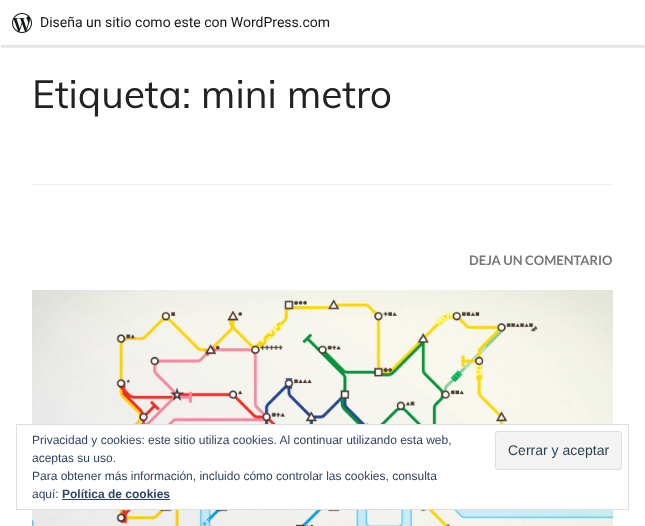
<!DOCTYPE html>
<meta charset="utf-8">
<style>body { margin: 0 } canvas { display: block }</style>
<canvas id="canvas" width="645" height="526"></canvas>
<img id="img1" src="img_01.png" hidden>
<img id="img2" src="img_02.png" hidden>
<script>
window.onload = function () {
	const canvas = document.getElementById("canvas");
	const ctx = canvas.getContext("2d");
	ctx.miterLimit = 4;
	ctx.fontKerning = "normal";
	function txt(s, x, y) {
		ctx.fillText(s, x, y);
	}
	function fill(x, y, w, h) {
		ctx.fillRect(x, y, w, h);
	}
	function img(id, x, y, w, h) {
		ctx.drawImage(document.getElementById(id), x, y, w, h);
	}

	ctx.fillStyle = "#FFFFFF";
	fill(0, 0, 645, 526);
	ctx.fillStyle = "rgba(0, 0, 0, 0.05)";
	ctx.filter = "blur(1px)";
	ctx.beginPath();
	ctx.rect(0, 1, 645, 45);
	ctx.fill();
	ctx.filter = "none";
	ctx.fillStyle = "rgba(0, 0, 0, 0.08)";
	ctx.beginPath();
	ctx.moveTo(1, 45);
	ctx.lineTo(1, 48);
	ctx.lineTo(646, 48);
	ctx.lineTo(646, 3);
	ctx.lineTo(645, 3);
	ctx.lineTo(645, 45);
	ctx.closePath();
	ctx.fill();
	ctx.fillStyle = "#FFFFFF";
	fill(0, 0, 645, 45);
	img("img1", 12, 13, 20, 20);
	ctx.fillStyle = "#EFEFEF";
	fill(32, 184, 581, 1);
	img("img2", 32, 290, 581, 236);
	ctx.fillStyle = "#FFFFFF";
	fill(32, 425, 581, 84);
	ctx.strokeStyle = "#DEDEDE";
	ctx.strokeRect(16.5, 424.5, 612, 85);
	ctx.fillStyle = "#F3F3F3";
	ctx.beginPath();
	ctx.roundRect(495.5, 431.5, 126, 38, 2.5);
	ctx.fill();
	ctx.stroke();
	ctx.fillStyle = "#2E4467";
	fill(62, 499, 108, 1);
	ctx.font = "14px Roboto";
	ctx.fillStyle = "#171717";
	txt("Diseña un sitio como este con WordPress.com", 40, 27);
	ctx.font = "39px Muli";
	ctx.fillStyle = "#222222";
	txt("Etiqueta: mini metro", 32, 108);
	ctx.font = "bold 13px Lato";
	ctx.fillStyle = "#777777";
	txt("DEJA UN COMENTARIO", 469, 265);
	ctx.font = "12px Arimo";
	ctx.fillStyle = "#2E4467";
	txt("Privacidad y cookies: este sitio utiliza cookies. Al continuar utilizando esta web,", 32, 444);
	ctx.font = "14px Arimo";
	ctx.fillStyle = "#2E4453";
	txt("Cerrar y aceptar", 508, 455);
	ctx.font = "12px Arimo";
	ctx.fillStyle = "#2E4467";
	txt("aceptas su uso.", 32, 462);
	txt("Para obtener más información, incluido cómo controlar las cookies, consulta", 32, 480);
	txt("aquí:", 32, 498);
	ctx.font = "bold 12px Arimo";
	txt("Política de cookies", 62, 498);
};
</script>
